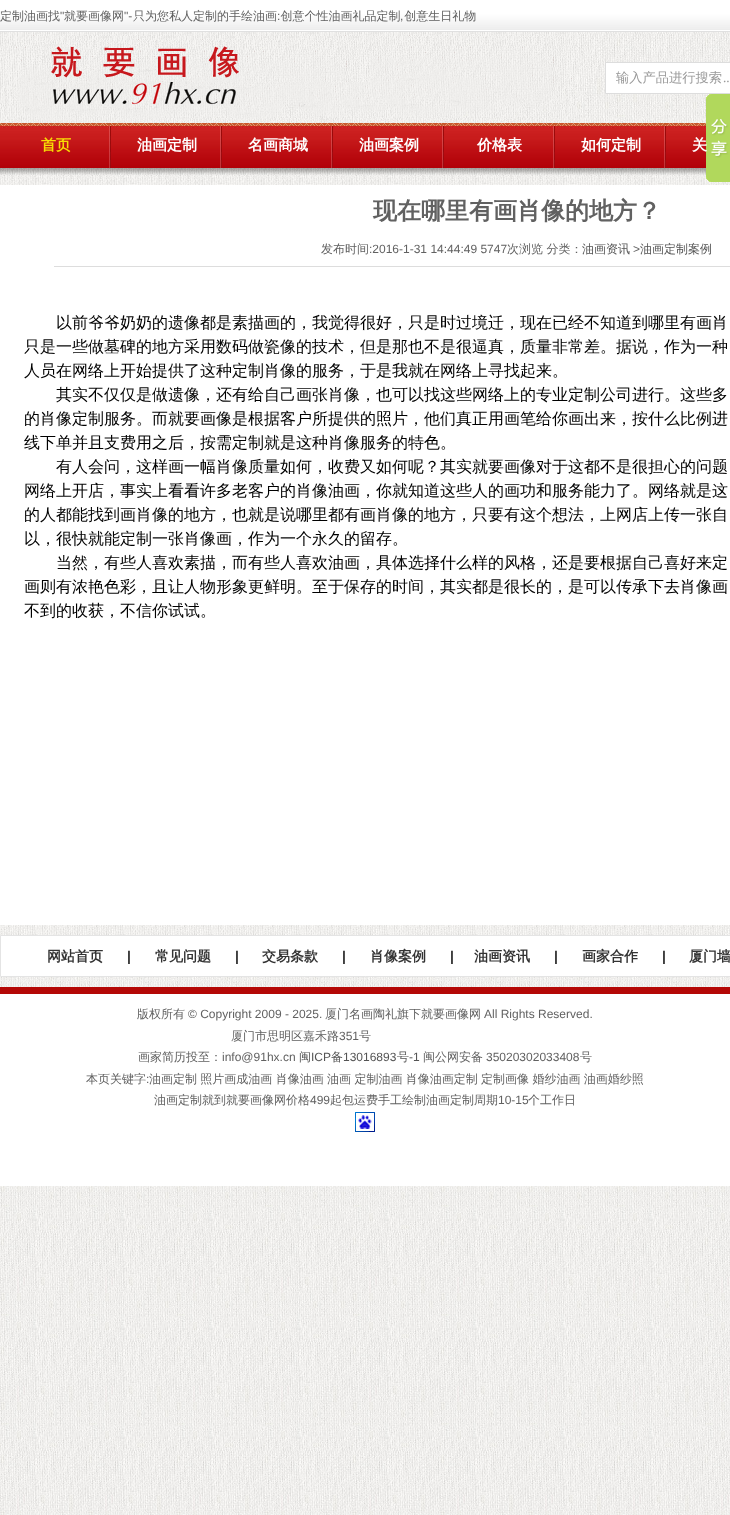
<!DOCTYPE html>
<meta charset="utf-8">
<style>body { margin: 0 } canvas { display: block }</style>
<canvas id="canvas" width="730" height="1515"></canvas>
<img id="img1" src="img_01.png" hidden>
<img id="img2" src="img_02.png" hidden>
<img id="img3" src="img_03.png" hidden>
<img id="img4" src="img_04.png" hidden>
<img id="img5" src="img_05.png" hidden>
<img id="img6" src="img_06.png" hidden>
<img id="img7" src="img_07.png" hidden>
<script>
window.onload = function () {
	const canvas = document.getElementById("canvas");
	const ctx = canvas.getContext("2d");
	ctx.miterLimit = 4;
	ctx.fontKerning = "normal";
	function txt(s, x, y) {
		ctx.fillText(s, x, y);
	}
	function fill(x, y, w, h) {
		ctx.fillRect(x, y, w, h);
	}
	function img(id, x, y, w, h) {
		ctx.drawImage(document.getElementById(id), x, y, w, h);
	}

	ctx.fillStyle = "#FFFFFF";
	fill(0, 0, 730, 1515);
	img("img1", 0, 32, 730, 1483);
	img("img2", 0, 0, 730, 32);
	img("img3", 0, 32, 577, 91);
	ctx.beginPath();
	ctx.rect(605.5, 62.5, 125, 31);
	ctx.fill();
	ctx.strokeStyle = "#DDDDDD";
	ctx.stroke();
	img("img4", 0, 123, 706, 52);
	img("img5", 109, 123, 2, 45);
	img("img5", 220, 123, 2, 45);
	img("img5", 331, 123, 2, 45);
	img("img5", 442, 123, 2, 45);
	img("img5", 553, 123, 2, 45);
	img("img5", 664, 123, 2, 45);
	img("img6", 706, 94, 24, 88);
	fill(0, 185, 730, 740);
	ctx.fillStyle = "#DDDDDD";
	fill(54, 266, 676, 1);
	ctx.fillStyle = "#FFFFFF";
	ctx.beginPath();
	ctx.rect(0.5, 935.5, 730, 41);
	ctx.fill();
	ctx.strokeStyle = "#E4E4E4";
	ctx.stroke();
	fill(0, 994, 730, 192);
	ctx.fillStyle = "#B40806";
	fill(0, 987, 730, 7);
	img("img7", 355, 1112, 20, 20);
	ctx.font = "500 12px WenQuanYi Zen Hei";
	ctx.fillStyle = "#616161";
	txt("定制油画找", 0, 20);
	ctx.font = "12px Liberation Sans";
	txt("\"", 60, 20);
	ctx.font = "500 12px WenQuanYi Zen Hei";
	txt("就要画像网", 64, 20);
	ctx.font = "12px Liberation Sans";
	txt("\"-", 124, 20);
	ctx.font = "500 12px WenQuanYi Zen Hei";
	txt("只为您私人定制的手绘油画 创意个性油画礼品定制 创意生日礼物", 133, 20);
	ctx.font = "12px Liberation Sans";
	txt(":", 277, 20);
	txt(",", 400, 20);
	ctx.font = "500 13.25px WenQuanYi Zen Hei";
	ctx.fillStyle = "#999999";
	txt("输入产品进行搜索", 616, 82);
	ctx.font = "13.25px Liberation Serif";
	txt("..", 723, 82);
	ctx.font = "bold 15px WenQuanYi Zen Hei";
	ctx.fillStyle = "#F7DD04";
	txt("首页", 41, 150);
	ctx.fillStyle = "#FFFFFF";
	txt("油画定制", 137, 150);
	txt("名画商城", 248, 150);
	txt("油画案例", 359, 150);
	txt("价格表", 477, 150);
	txt("如何定制", 581, 150);
	txt("关", 692, 150);
	ctx.font = "bold 24px WenQuanYi Zen Hei";
	ctx.fillStyle = "#616161";
	txt("现在哪里有画肖像的地方？", 373, 219);
	ctx.font = "500 12px WenQuanYi Zen Hei";
	txt("发布时间", 321, 253);
	ctx.font = "12px Liberation Sans";
	txt(":2016-1-31 14:44:49 5747", 369, 253);
	ctx.font = "500 12px WenQuanYi Zen Hei";
	txt("次浏览 分类：", 507, 253);
	ctx.fillStyle = "#545454";
	txt("油画资讯", 582, 253);
	ctx.font = "12px Liberation Sans";
	ctx.fillStyle = "#616161";
	txt(">", 633, 253);
	ctx.font = "500 12px WenQuanYi Zen Hei";
	ctx.fillStyle = "#545454";
	txt("油画定制案例", 640, 253);
	ctx.font = "500 16px WenQuanYi Zen Hei";
	ctx.fillStyle = "#000000";
	txt("以前爷爷奶奶的遗像都是素描画的，我觉得很好，只是时过境迁，现在已经不知道到哪里有画肖", 56, 328);
	txt("只是一些做墓碑的地方采用数码做瓷像的技术，但是那也不是很逼真，质量非常差。据说，作为一种", 24, 352);
	txt("人员在网络上开始提供了这种定制肖像的服务，于是我就在网络上寻找起来。", 24, 376);
	txt("其实不仅仅是做遗像，还有给自己画张肖像，也可以找这些网络上的专业定制公司进行。这些多", 56, 400);
	txt("的肖像定制服务。而就要画像是根据客户所提供的照片，他们真正用画笔给你画出来，按什么比例进", 24, 424);
	txt("线下单并且支费用之后，按需定制就是这种肖像服务的特色。", 24, 448);
	txt("有人会问，这样画一幅肖像质量如何，收费又如何呢？其实就要画像对于这都不是很担心的问题", 56, 472);
	txt("网络上开店，事实上看看许多老客户的肖像油画，你就知道这些人的画功和服务能力了。网络就是这", 24, 496);
	txt("的人都能找到画肖像的地方，也就是说哪里都有画肖像的地方，只要有这个想法，上网店上传一张自", 24, 520);
	txt("以，很快就能定制一张肖像画，作为一个永久的留存。", 24, 544);
	txt("当然，有些人喜欢素描，而有些人喜欢油画，具体选择什么样的风格，还是要根据自己喜好来定", 56, 568);
	txt("画则有浓艳色彩，且让人物形象更鲜明。至于保存的时间，其实都是很长的，是可以传承下去肖像画", 24, 592);
	txt("不到的收获，不信你试试。", 24, 616);
	ctx.font = "bold 14px WenQuanYi Zen Hei";
	ctx.fillStyle = "#333333";
	txt("网站首页", 47, 961);
	ctx.font = "bold 14px Liberation Sans";
	txt("|", 127, 961);
	ctx.font = "bold 14px WenQuanYi Zen Hei";
	txt("常见问题", 155, 961);
	ctx.font = "bold 14px Liberation Sans";
	txt("|", 235, 961);
	ctx.font = "bold 14px WenQuanYi Zen Hei";
	txt("交易条款", 262, 961);
	ctx.font = "bold 14px Liberation Sans";
	txt("|", 342, 961);
	ctx.font = "bold 14px WenQuanYi Zen Hei";
	txt("肖像案例", 370, 961);
	ctx.font = "bold 14px Liberation Sans";
	txt("|", 450, 961);
	ctx.font = "bold 14px WenQuanYi Zen Hei";
	txt("油画资讯", 474, 961);
	ctx.font = "bold 14px Liberation Sans";
	txt("|", 554, 961);
	ctx.font = "bold 14px WenQuanYi Zen Hei";
	txt("画家合作", 582, 961);
	ctx.font = "bold 14px Liberation Sans";
	txt("|", 662, 961);
	ctx.font = "bold 14px WenQuanYi Zen Hei";
	txt("厦门墙", 689, 961);
	ctx.font = "500 12px WenQuanYi Zen Hei";
	ctx.fillStyle = "#616161";
	txt("版权所有", 137, 1018);
	ctx.font = "12px Liberation Sans";
	txt("© Copyright 2009 - 2025.", 188, 1018);
	ctx.font = "500 12px WenQuanYi Zen Hei";
	txt("厦门名画陶礼旗下就要画像网", 325, 1018);
	ctx.font = "12px Liberation Sans";
	txt("All Rights Reserved.", 484, 1018);
	ctx.font = "500 12px WenQuanYi Zen Hei";
	txt("厦门市思明区嘉禾路", 231, 1040);
	ctx.font = "12px Liberation Sans";
	txt("351", 339, 1040);
	ctx.font = "500 12px WenQuanYi Zen Hei";
	txt("号", 359, 1040);
	txt("画家简历投至：", 138, 1061);
	ctx.font = "12px Liberation Sans";
	txt("info@91hx.cn", 222, 1061);
	ctx.font = "500 12px WenQuanYi Zen Hei";
	ctx.fillStyle = "#545454";
	txt("闽", 299, 1061);
	ctx.font = "12px Liberation Sans";
	txt("ICP", 311, 1061);
	ctx.font = "500 12px WenQuanYi Zen Hei";
	txt("备", 331, 1061);
	ctx.font = "12px Liberation Sans";
	txt("13016893", 343, 1061);
	ctx.font = "500 12px WenQuanYi Zen Hei";
	txt("号", 397, 1061);
	ctx.font = "12px Liberation Sans";
	txt("-1", 409, 1061);
	ctx.font = "500 12px WenQuanYi Zen Hei";
	ctx.fillStyle = "#616161";
	txt("闽公网安备", 423, 1061);
	ctx.font = "12px Liberation Sans";
	txt("35020302033408", 486, 1061);
	ctx.font = "500 12px WenQuanYi Zen Hei";
	txt("号", 580, 1061);
	txt("本页关键字", 86, 1083);
	ctx.font = "12px Liberation Sans";
	txt(":", 146, 1083);
	ctx.wordSpacing = "-0.25px";
	ctx.font = "500 12px WenQuanYi Zen Hei";
	txt("油画定制 照片画成油画 肖像油画 油画 定制油画 肖像油画定制 定制画像 婚纱油画 油画婚纱照", 149, 1083);
	ctx.wordSpacing = "0px";
	txt("油画定制就到就要画像网价格", 154, 1104);
	ctx.font = "12px Liberation Sans";
	txt("499", 310, 1104);
	ctx.font = "500 12px WenQuanYi Zen Hei";
	txt("起包运费手工绘制油画定制周期", 330, 1104);
	ctx.font = "12px Liberation Sans";
	txt("10-15", 498, 1104);
	ctx.font = "500 12px WenQuanYi Zen Hei";
	txt("个工作日", 528, 1104);
};
</script>
